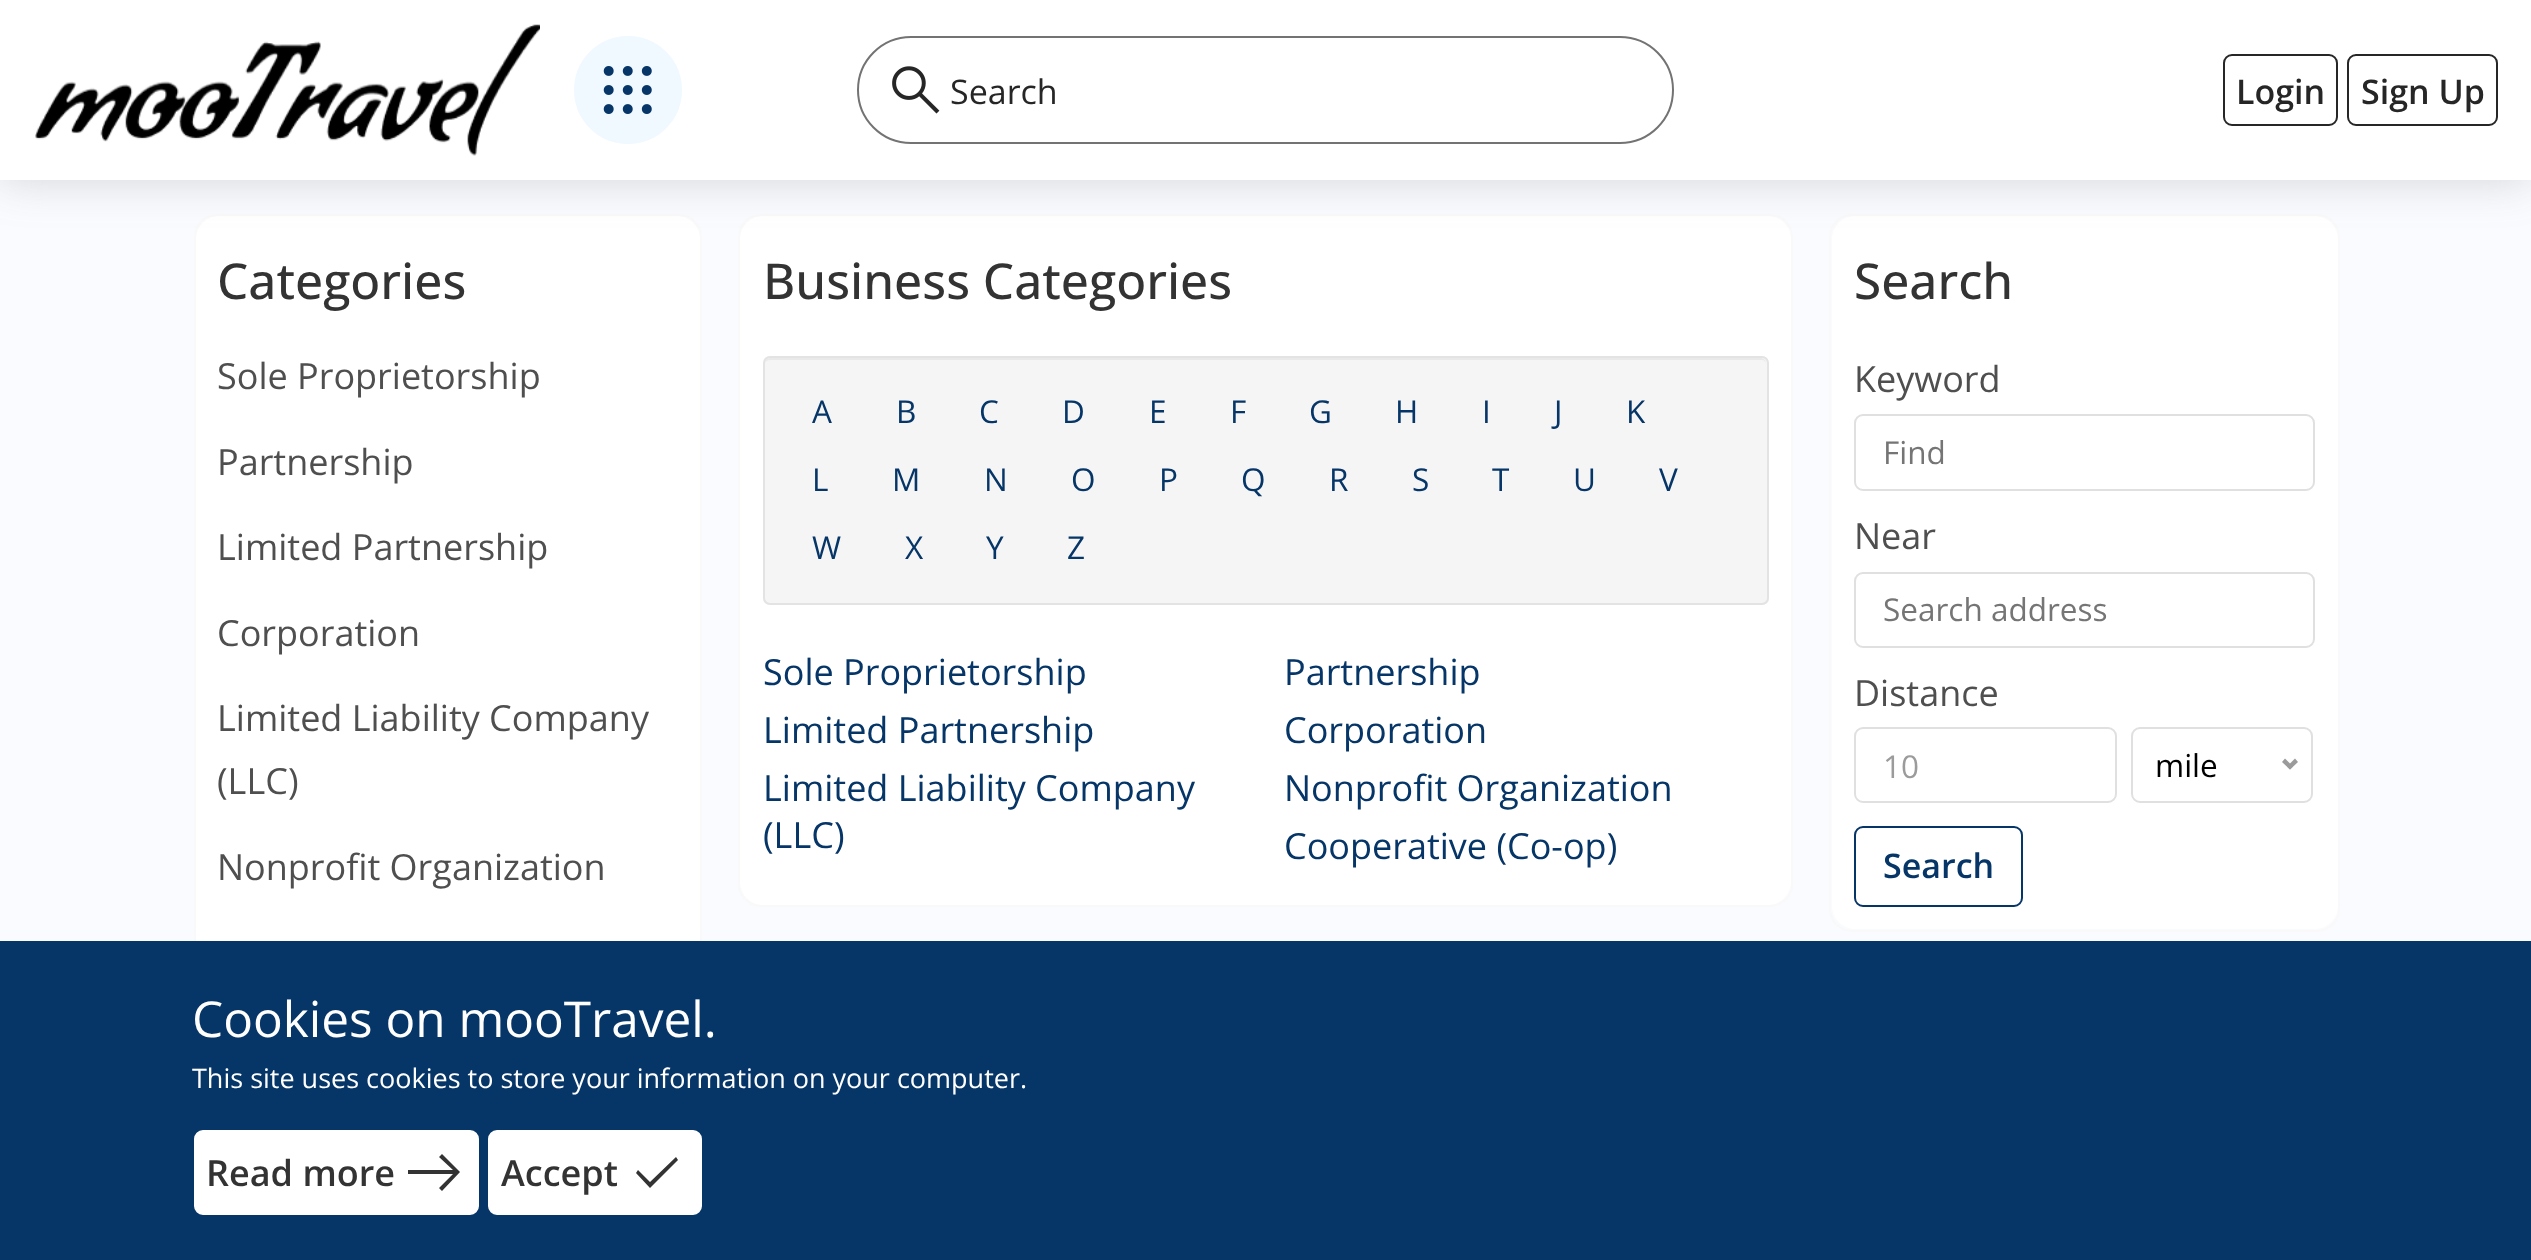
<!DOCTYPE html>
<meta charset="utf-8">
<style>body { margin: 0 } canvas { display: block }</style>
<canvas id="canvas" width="2531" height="1260"></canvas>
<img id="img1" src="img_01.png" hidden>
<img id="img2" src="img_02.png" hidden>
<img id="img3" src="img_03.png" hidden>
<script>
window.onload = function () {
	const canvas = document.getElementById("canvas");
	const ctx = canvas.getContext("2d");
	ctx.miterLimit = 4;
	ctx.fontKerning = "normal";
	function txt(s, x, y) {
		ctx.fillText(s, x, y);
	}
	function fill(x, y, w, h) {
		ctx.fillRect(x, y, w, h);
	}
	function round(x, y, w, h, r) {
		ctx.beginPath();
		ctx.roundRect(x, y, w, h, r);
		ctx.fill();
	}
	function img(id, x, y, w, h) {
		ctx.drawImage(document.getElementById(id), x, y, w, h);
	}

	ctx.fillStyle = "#FAFBFE";
	fill(0, 0, 2531, 1260);
	ctx.beginPath();
	ctx.roundRect(195, 215, 506, 851, 22);
	ctx.strokeStyle = "#F9F9F9";
	ctx.lineWidth = 2;
	ctx.stroke();
	ctx.fillStyle = "#FFFFFF";
	ctx.beginPath();
	ctx.roundRect(196, 216, 504, 117, [23, 23, 0, 0]);
	ctx.fill();
	ctx.beginPath();
	ctx.roundRect(739, 215, 1053, 691, 22);
	ctx.stroke();
	ctx.beginPath();
	ctx.roundRect(740, 216, 1051, 117, [23, 23, 0, 0]);
	ctx.fill();
	ctx.beginPath();
	ctx.roundRect(1830, 215, 509, 716, 22);
	ctx.stroke();
	ctx.beginPath();
	ctx.roundRect(1832, 216, 506, 117, [23, 23, 0, 0]);
	ctx.fill();
	ctx.fillStyle = "rgba(99, 99, 99, 0.25)";
	ctx.filter = "blur(22.5px)";
	ctx.beginPath();
	ctx.rect(0, 0, 2531, 180);
	ctx.fill();
	ctx.filter = "none";
	ctx.fillStyle = "#FFFFFF";
	fill(0, 0, 2531, 180);
	img("img1", 35, 24, 505, 132);
	ctx.fillStyle = "#F0F9FF";
	ctx.beginPath();
	ctx.arc(628, 90, 53, 0, Math.PI * 2);
	ctx.fill();
	ctx.strokeStyle = "#F0F9FF";
	ctx.stroke();
	img("img2", 603, 66, 49, 48);
	ctx.beginPath();
	ctx.roundRect(858, 37, 815, 106, 53);
	ctx.strokeStyle = "#737373";
	ctx.stroke();
	img("img3", 892, 66, 48, 48);
	ctx.beginPath();
	ctx.roundRect(2224, 55, 113, 70, 8);
	ctx.strokeStyle = "#262626";
	ctx.stroke();
	ctx.beginPath();
	ctx.roundRect(2348, 55, 149, 70, 8);
	ctx.stroke();
	ctx.fillStyle = "#FFFFFF";
	fill(196, 333, 504, 608);
	ctx.beginPath();
	ctx.roundRect(740, 333, 1051, 572, [0, 0, 23, 23]);
	ctx.fill();
	ctx.fillStyle = "#F5F5F5";
	round(763, 356, 1006, 249, 7);
	ctx.fillStyle = "#E9E9E9";
	ctx.beginPath();
	ctx.moveTo(770, 360);
	ctx.lineTo(1762, 360);
	ctx.bezierCurveTo(1764, 360, 1766, 362, 1766, 364);
	ctx.bezierCurveTo(1766, 361, 1764, 358, 1761, 358);
	ctx.lineTo(770, 358);
	ctx.bezierCurveTo(767, 358, 765, 361, 765, 364);
	ctx.bezierCurveTo(765, 362, 767, 360, 770, 360);
	ctx.closePath();
	ctx.fill();
	ctx.beginPath();
	ctx.roundRect(764, 357, 1004, 247, 6);
	ctx.strokeStyle = "#E3E3E3";
	ctx.stroke();
	ctx.fillStyle = "#FFFFFF";
	ctx.beginPath();
	ctx.roundRect(1832, 333, 506, 596, [0, 0, 23, 23]);
	ctx.fill();
	ctx.beginPath();
	ctx.roundRect(1855, 415, 459, 75, 8);
	ctx.strokeStyle = "#E0E0E0";
	ctx.stroke();
	ctx.beginPath();
	ctx.roundRect(1855, 573, 459, 74, 8);
	ctx.stroke();
	ctx.beginPath();
	ctx.roundRect(1855, 728, 261, 74, 8);
	ctx.stroke();
	ctx.beginPath();
	ctx.roundRect(2132, 728, 180, 74, 8);
	ctx.stroke();
	ctx.fillStyle = "#9B9B9B";
	ctx.beginPath();
	ctx.moveTo(2295, 758.5);
	ctx.lineTo(2298, 762);
	ctx.lineTo(2290, 769.5);
	ctx.lineTo(2287, 766.5);
	ctx.closePath();
	ctx.fill();
	ctx.beginPath();
	ctx.moveTo(2285, 758.5);
	ctx.lineTo(2293, 766.5);
	ctx.lineTo(2290, 769.5);
	ctx.lineTo(2282, 762);
	ctx.closePath();
	ctx.fill();
	ctx.beginPath();
	ctx.roundRect(1855, 827, 167, 79, 8);
	ctx.strokeStyle = "#063567";
	ctx.stroke();
	ctx.fillStyle = "#063567";
	fill(0, 941, 2531, 319);
	ctx.fillStyle = "#FFFFFF";
	ctx.beginPath();
	ctx.roundRect(195, 1131, 283, 83, 8);
	ctx.fill();
	ctx.strokeStyle = "#FFFFFF";
	ctx.stroke();
	ctx.fillStyle = "#333333";
	ctx.beginPath();
	ctx.moveTo(442, 1191);
	ctx.lineTo(439, 1188);
	ctx.lineTo(453, 1174);
	ctx.lineTo(408, 1174);
	ctx.lineTo(408, 1170);
	ctx.lineTo(453, 1170);
	ctx.lineTo(439, 1157);
	ctx.lineTo(442, 1154);
	ctx.lineTo(460, 1172);
	ctx.closePath();
	ctx.fill();
	ctx.fillStyle = "#FFFFFF";
	ctx.beginPath();
	ctx.roundRect(489, 1131, 212, 83, 8);
	ctx.fill();
	ctx.stroke();
	ctx.fillStyle = "#333333";
	ctx.beginPath();
	ctx.moveTo(650, 1188);
	ctx.lineTo(636, 1173);
	ctx.lineTo(638, 1170);
	ctx.lineTo(650, 1182);
	ctx.lineTo(676, 1157);
	ctx.lineTo(678, 1160);
	ctx.closePath();
	ctx.fill();
	ctx.font = "34px Open Sans";
	ctx.fillStyle = "#262626";
	txt("Search", 950, 104);
	ctx.font = "600 34px Open Sans";
	txt("Login", 2236, 104);
	txt("Sign Up", 2361, 104);
	ctx.font = "500 49.5px Open Sans";
	ctx.fillStyle = "#333333";
	txt("Categories", 217, 299);
	ctx.font = "36px Open Sans";
	ctx.fillStyle = "#4F4F4F";
	txt("Sole Proprietorship", 217, 389);
	txt("Partnership", 217, 475);
	txt("Limited Partnership", 217, 560);
	txt("Corporation", 217, 646);
	txt("Limited Liability Company", 217, 731);
	txt("(LLC)", 217, 794);
	txt("Nonprofit Organization", 217, 880);
	ctx.font = "500 49.5px Open Sans";
	ctx.fillStyle = "#333333";
	txt("Business Categories", 763, 299);
	ctx.font = "31.5px Open Sans";
	ctx.fillStyle = "#063567";
	txt("A", 812, 423);
	txt("B", 896, 423);
	txt("C", 979, 423);
	txt("D", 1062, 423);
	txt("E", 1149, 423);
	txt("F", 1230, 423);
	txt("G", 1309, 423);
	txt("H", 1395, 423);
	txt("I", 1482, 423);
	txt("J", 1554, 423);
	txt("K", 1626, 423);
	txt("L", 812, 491);
	txt("M", 892, 491);
	txt("N", 984, 491);
	txt("O", 1071, 491);
	txt("P", 1159, 491);
	txt("Q", 1241, 491);
	txt("R", 1329, 491);
	txt("S", 1412, 491);
	txt("T", 1492, 491);
	txt("U", 1573, 491);
	txt("V", 1659, 491);
	txt("W", 812, 559);
	txt("X", 905, 559);
	txt("Y", 986, 559);
	txt("Z", 1067, 559);
	ctx.font = "36px Open Sans";
	txt("Sole Proprietorship", 763, 685);
	txt("Partnership", 1284, 685);
	txt("Limited Partnership", 763, 743);
	txt("Corporation", 1284, 743);
	txt("Limited Liability Company", 763, 801);
	txt("(LLC)", 763, 848);
	txt("Nonprofit Organization", 1284, 801);
	txt("Cooperative (Co-op)", 1284, 859);
	ctx.font = "500 49.5px Open Sans";
	ctx.fillStyle = "#333333";
	txt("Search", 1854, 299);
	ctx.font = "36px Open Sans";
	ctx.fillStyle = "#4F4F4F";
	txt("Keyword", 1854, 392);
	ctx.font = "31.5px Open Sans";
	ctx.fillStyle = "#757575";
	txt("Find", 1883, 464);
	ctx.font = "36px Open Sans";
	ctx.fillStyle = "#4F4F4F";
	txt("Near", 1854, 549);
	ctx.font = "31.5px Open Sans";
	ctx.fillStyle = "#757575";
	txt("Search address", 1883, 621);
	ctx.font = "36px Open Sans";
	ctx.fillStyle = "#4F4F4F";
	txt("Distance", 1854, 706);
	ctx.font = "31.5px Open Sans";
	ctx.fillStyle = "#9B9B9B";
	txt("10", 1883, 778);
	ctx.fillStyle = "#000000";
	txt("mile", 2155, 777);
	ctx.font = "600 34px Open Sans";
	ctx.fillStyle = "#063567";
	txt("Search", 1883, 878);
	ctx.font = "49.5px Open Sans";
	ctx.fillStyle = "#FFFFFF";
	txt("Cookies on mooTravel.", 192, 1037);
	ctx.font = "27px Open Sans";
	txt("This site uses cookies to store your information on your computer.", 192, 1088);
	ctx.font = "600 36px Open Sans";
	ctx.fillStyle = "#333333";
	txt("Read more", 206, 1186);
	txt("Accept", 501, 1186);
};
</script>
